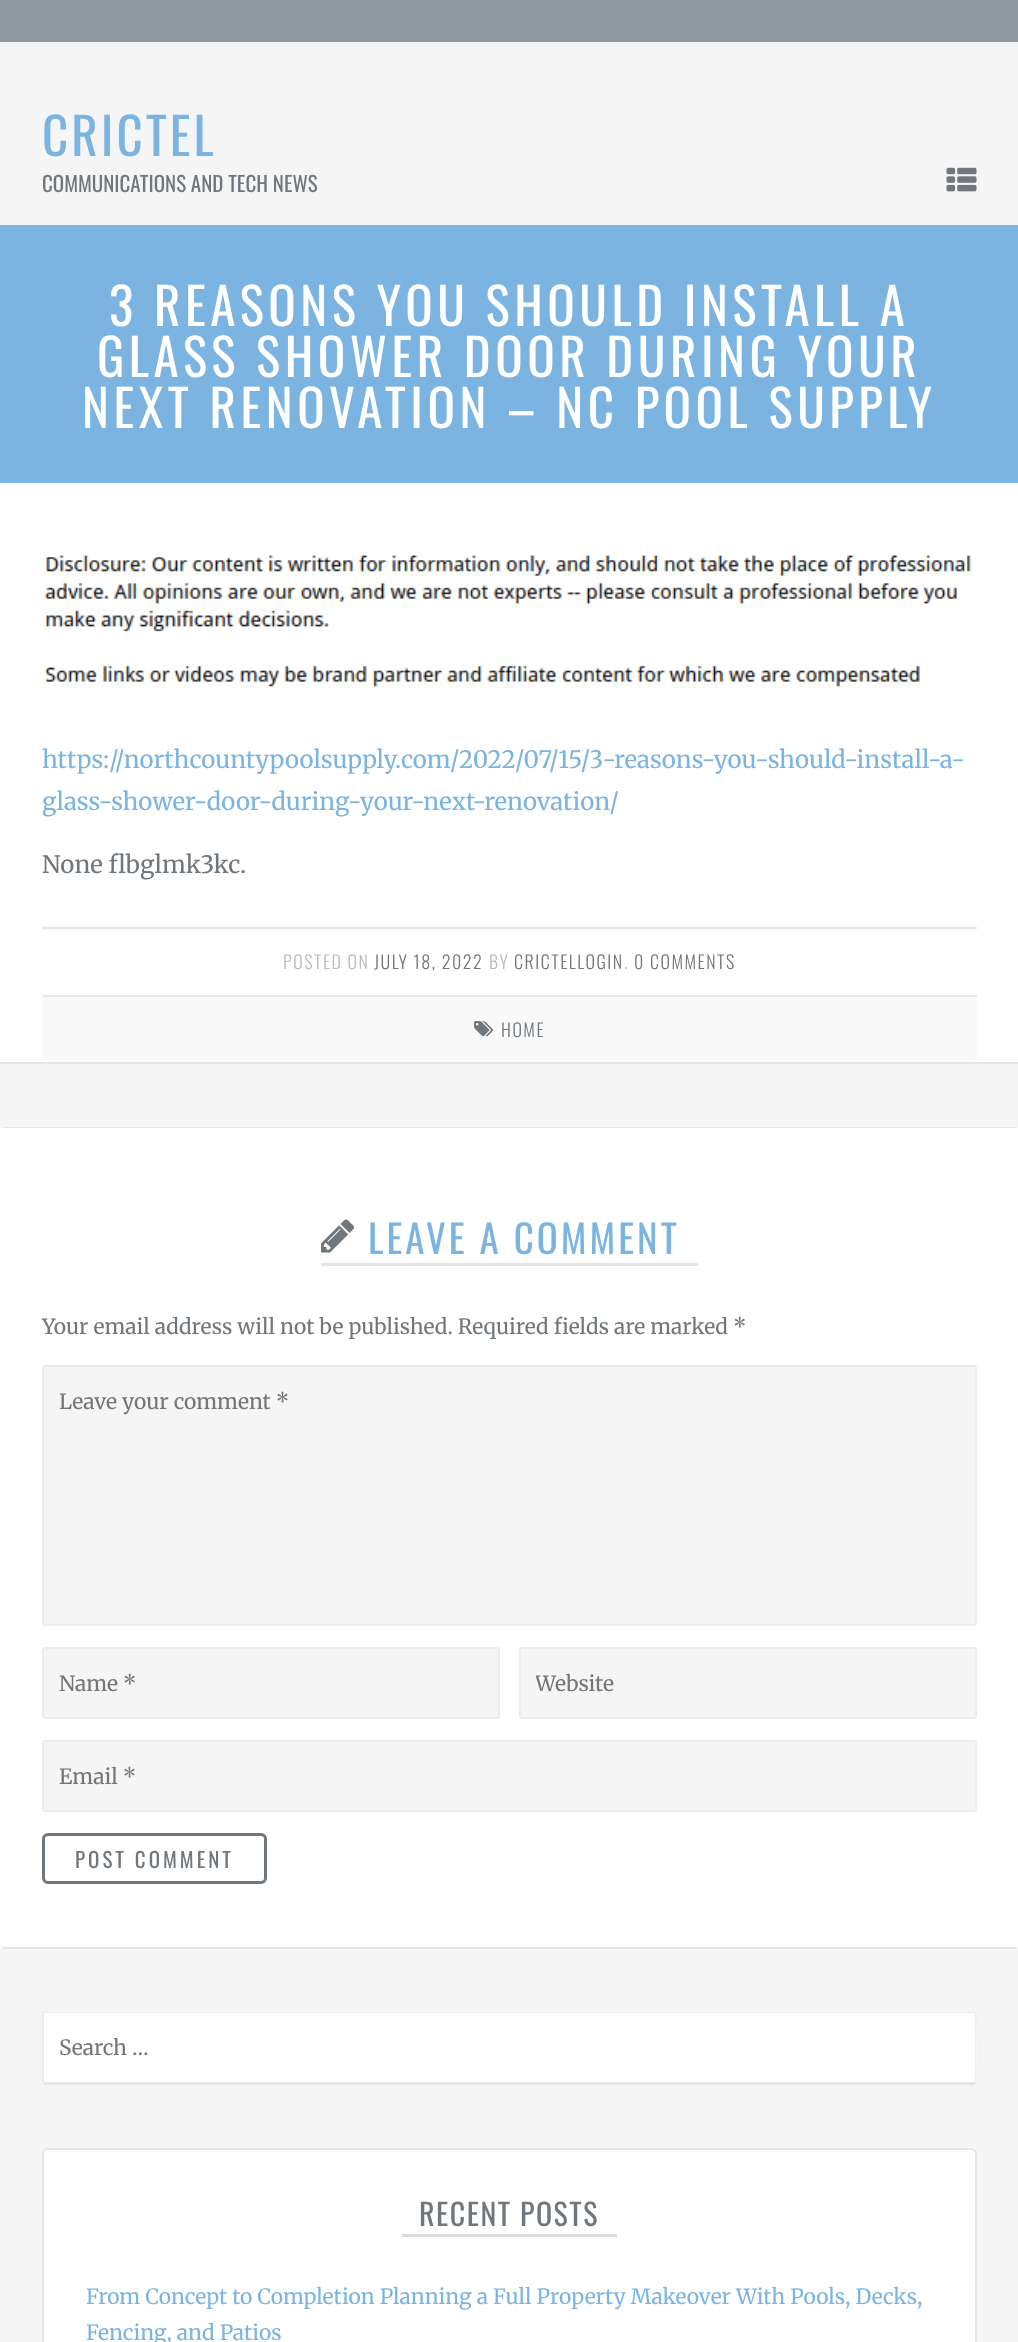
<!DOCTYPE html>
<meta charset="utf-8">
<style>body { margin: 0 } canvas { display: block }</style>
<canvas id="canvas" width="1018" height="2342"></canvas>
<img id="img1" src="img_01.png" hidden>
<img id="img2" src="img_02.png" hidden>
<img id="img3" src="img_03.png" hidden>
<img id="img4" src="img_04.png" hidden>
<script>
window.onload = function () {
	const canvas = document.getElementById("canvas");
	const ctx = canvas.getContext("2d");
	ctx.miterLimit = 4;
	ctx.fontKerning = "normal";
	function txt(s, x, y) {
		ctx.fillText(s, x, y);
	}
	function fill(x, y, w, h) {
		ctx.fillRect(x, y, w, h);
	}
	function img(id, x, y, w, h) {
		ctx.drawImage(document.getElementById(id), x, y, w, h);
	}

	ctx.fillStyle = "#8E989E";
	fill(0, 0, 1018, 2342);
	ctx.fillStyle = "#F5F5F6";
	fill(0, 42, 1018, 183);
	img("img1", 946, 167, 31, 25);
	fill(0, 1064, 1018, 1278);
	ctx.fillStyle = "#7BB4E0";
	fill(0, 225, 1018, 258);
	ctx.fillStyle = "#FFFFFF";
	fill(0, 483, 1018, 579);
	ctx.fillStyle = "#E3E5E6";
	fill(0, 1062, 1018, 2);
	img("img2", 44, 555, 927, 132);
	fill(42, 927, 935, 2);
	ctx.fillStyle = "#F9F9FA";
	ctx.beginPath();
	ctx.roundRect(42, 995, 935, 67, [0, 0, 6, 6]);
	ctx.fill();
	ctx.fillStyle = "#E3E5E6";
	fill(42, 995, 935, 2);
	img("img3", 474, 1021, 19, 16);
	fill(3, 1127, 1013, 1);
	fill(3, 1947, 1013, 2);
	ctx.fillStyle = "#FFFFFF";
	fill(0, 1128, 1018, 819);
	ctx.fillStyle = "#E3E5E6";
	fill(321, 1263, 377, 3);
	img("img4", 321, 1219, 33, 34);
	ctx.fillStyle = "#F5F5F6";
	ctx.beginPath();
	ctx.roundRect(43, 1366, 933, 259, 2);
	ctx.fill();
	ctx.strokeStyle = "#ECECEE";
	ctx.lineWidth = 2;
	ctx.stroke();
	ctx.beginPath();
	ctx.roundRect(43, 1648, 456, 70, 2);
	ctx.fill();
	ctx.stroke();
	ctx.beginPath();
	ctx.roundRect(520, 1648, 456, 70, 2);
	ctx.fill();
	ctx.stroke();
	ctx.beginPath();
	ctx.roundRect(43, 1741, 933, 70, 2);
	ctx.fill();
	ctx.stroke();
	ctx.beginPath();
	ctx.roundRect(43.5, 1834.5, 222, 48, 4.5);
	ctx.strokeStyle = "#70777C";
	ctx.lineWidth = 3;
	ctx.stroke();
	ctx.fillStyle = "#FFFFFF";
	ctx.beginPath();
	ctx.moveTo(45, 2013);
	ctx.lineTo(974, 2013);
	ctx.bezierCurveTo(974, 2013, 975, 2014, 975, 2014);
	ctx.lineTo(975, 2082);
	ctx.lineTo(44, 2082);
	ctx.lineTo(44, 2014);
	ctx.bezierCurveTo(44, 2014, 44, 2013, 45, 2013);
	ctx.closePath();
	ctx.fill();
	ctx.fillStyle = "#ECECEE";
	ctx.beginPath();
	ctx.moveTo(45, 2012);
	ctx.lineTo(43, 2012);
	ctx.lineTo(44, 2014);
	ctx.lineTo(45, 2013);
	ctx.lineTo(974, 2013);
	ctx.lineTo(974, 2014);
	ctx.lineTo(975, 2013);
	ctx.lineTo(974, 2012);
	ctx.closePath();
	ctx.fill();
	ctx.beginPath();
	ctx.moveTo(976, 2084);
	ctx.lineTo(976, 2025);
	ctx.bezierCurveTo(976, 2021, 978, 2016, 975, 2013);
	ctx.lineTo(974, 2014);
	ctx.lineTo(975, 2014);
	ctx.lineTo(975, 2082);
	ctx.closePath();
	ctx.fill();
	ctx.fillStyle = "#E3E5E6";
	ctx.beginPath();
	ctx.moveTo(45, 2085);
	ctx.lineTo(974, 2085);
	ctx.bezierCurveTo(975, 2085, 975, 2085, 976, 2084);
	ctx.lineTo(975, 2082);
	ctx.lineTo(44, 2082);
	ctx.lineTo(44, 2081);
	ctx.lineTo(43, 2084);
	ctx.closePath();
	ctx.fill();
	ctx.save();
	ctx.beginPath();
	ctx.rect(42, 2012, 935, 73);
	ctx.clip();
	ctx.fillStyle = "#ECECEE";
	ctx.beginPath();
	ctx.moveTo(42, 2014);
	ctx.bezierCurveTo(42, 2022, 41, 2082, 43, 2084);
	ctx.lineTo(44, 2081);
	ctx.lineTo(44, 2014);
	ctx.lineTo(43, 2012);
	ctx.closePath();
	ctx.fill();
	ctx.restore();
	ctx.beginPath();
	ctx.roundRect(925, 2034, 51, 41, 5);
	ctx.strokeStyle = "rgba(255, 255, 255, 0.3)";
	ctx.lineWidth = 2;
	ctx.stroke();
	ctx.fillStyle = "#FFFFFF";
	ctx.beginPath();
	ctx.roundRect(43, 2149, 933, 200, 5);
	ctx.fill();
	ctx.strokeStyle = "#E3E5E6";
	ctx.stroke();
	ctx.fillStyle = "#DADCDE";
	fill(402, 2234, 215, 3);
	ctx.letterSpacing = "3px";
	ctx.font = "51px Oswald";
	ctx.fillStyle = "#7BB4E0";
	txt("CRICTEL", 42, 156);
	ctx.letterSpacing = "0px";
	ctx.font = "21px Oswald";
	ctx.fillStyle = "#70777C";
	txt("COMMUNICATIONS AND TECH NEWS", 42, 192);
	ctx.letterSpacing = "4.5px";
	ctx.font = "51px Oswald";
	ctx.fillStyle = "#FFFFFF";
	txt("3 REASONS YOU SHOULD INSTALL A", 109, 326);
	txt("GLASS SHOWER DOOR DURING YOUR", 97, 377);
	txt("NEXT RENOVATION – NC POOL SUPPLY", 82, 428);
	ctx.letterSpacing = "0px";
	ctx.font = "24px Merriweather";
	ctx.fillStyle = "#7BB4E0";
	txt("https://northcountypoolsupply.com/2022/07/15/3-reasons-you-should-install-a-", 42, 768);
	txt("glass-shower-door-during-your-next-renovation/", 42, 810);
	ctx.fillStyle = "#70777C";
	txt("None flbglmk3kc.", 42, 873);
	ctx.letterSpacing = "1.5px";
	ctx.font = "300 18px Oswald";
	ctx.fillStyle = "#B6BBBD";
	txt("POSTED ON", 283, 969);
	ctx.fillStyle = "#70777C";
	txt("JULY 18, 2022", 374, 969);
	ctx.fillStyle = "#B6BBBD";
	txt("BY", 489, 969);
	ctx.fillStyle = "#70777C";
	txt("CRICTELLOGIN", 514, 969);
	ctx.fillStyle = "#B6BBBD";
	txt(".", 624, 969);
	ctx.fillStyle = "#70777C";
	txt("0 COMMENTS", 634, 969);
	txt("HOME", 501, 1037);
	ctx.letterSpacing = "3px";
	ctx.font = "39px Oswald";
	ctx.fillStyle = "#7BB4E0";
	txt("LEAVE A COMMENT", 368, 1254);
	ctx.letterSpacing = "0px";
	ctx.font = "21px Merriweather";
	ctx.fillStyle = "#70777C";
	txt("Your email address will not be published. Required fields are marked *", 42, 1334);
	ctx.fillStyle = "#757575";
	txt("Leave your comment *", 59, 1409);
	txt("Name *", 59, 1691);
	ctx.save();
	ctx.beginPath();
	ctx.rect(536, 1670, 424, 27);
	ctx.clip();
	txt("Website", 535, 1691);
	ctx.restore();
	txt("Email *", 59, 1784);
	ctx.letterSpacing = "3px";
	ctx.font = "21px Oswald";
	ctx.fillStyle = "#70777C";
	txt("POST COMMENT", 75, 1868);
	ctx.letterSpacing = "0px";
	ctx.font = "21px Merriweather";
	ctx.fillStyle = "#757575";
	txt("Search …", 59, 2055);
	ctx.letterSpacing = "1.5px";
	ctx.font = "30px Oswald";
	ctx.fillStyle = "#70777C";
	txt("RECENT POSTS", 419, 2226);
	ctx.letterSpacing = "0px";
	ctx.font = "21px Merriweather";
	ctx.fillStyle = "#7BB4E0";
	txt("From Concept to Completion Planning a Full Property Makeover With Pools, Decks,", 86, 2304);
	txt("Fencing, and Patios", 86, 2340);
};
</script>
